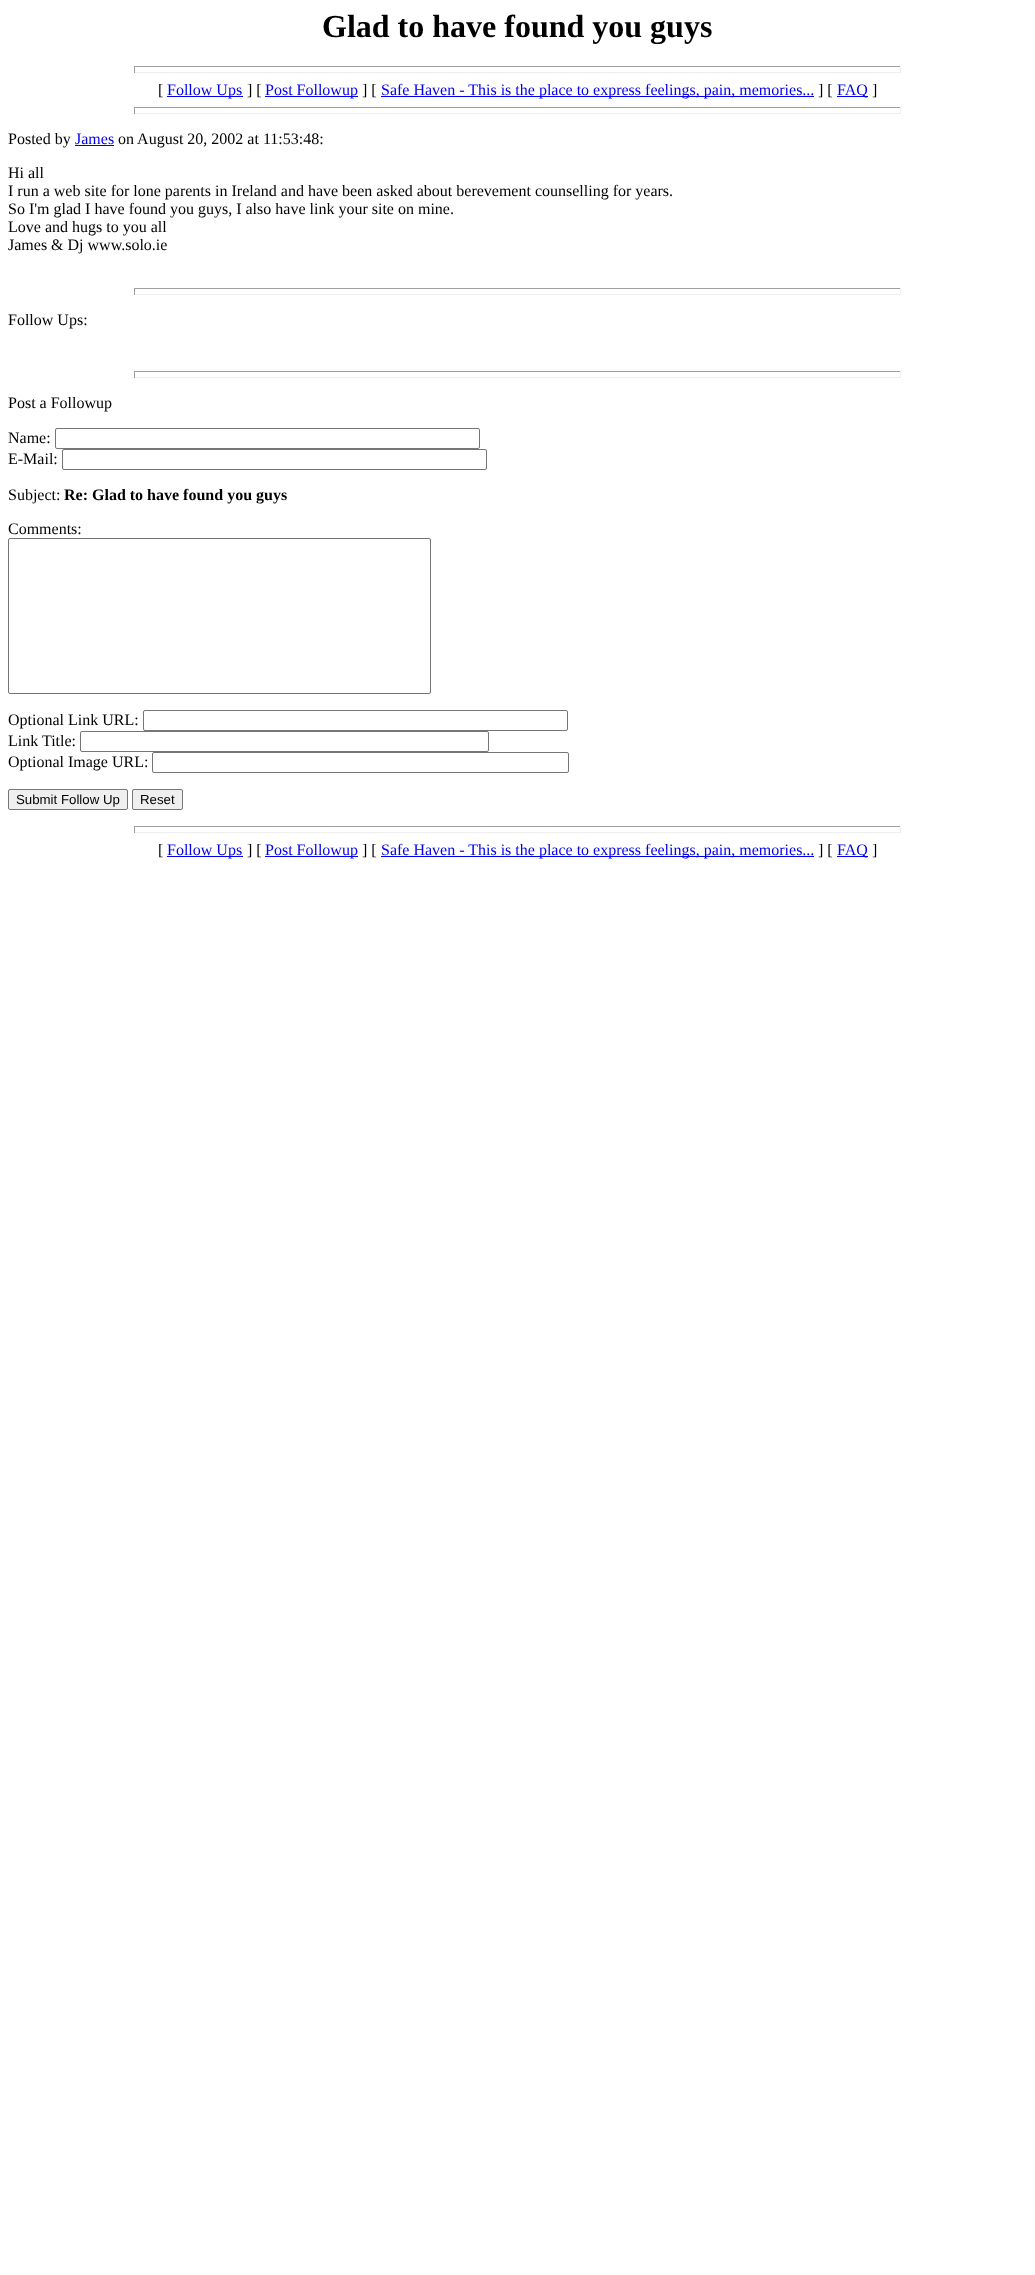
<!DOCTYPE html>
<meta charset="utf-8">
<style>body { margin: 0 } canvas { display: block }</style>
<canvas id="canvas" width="1035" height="2275"></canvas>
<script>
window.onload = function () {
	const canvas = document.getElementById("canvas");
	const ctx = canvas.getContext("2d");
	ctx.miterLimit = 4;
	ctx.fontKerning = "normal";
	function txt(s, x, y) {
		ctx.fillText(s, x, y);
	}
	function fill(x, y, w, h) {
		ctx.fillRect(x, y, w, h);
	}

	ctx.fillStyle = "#FFFFFF";
	fill(0, 0, 1035, 2275);
	ctx.fillStyle = "#9F9F9F";
	fill(134, 66, 767, 1);
	ctx.fillStyle = "#EEEEEE";
	fill(900, 66, 1, 7);
	fill(134, 72, 767, 1);
	ctx.fillStyle = "#9F9F9F";
	fill(134, 66, 1, 7);
	ctx.fillStyle = "#0000EE";
	fill(167, 96, 76, 1);
	fill(265, 96, 93, 1);
	fill(381, 96, 433, 1);
	fill(837, 96, 31, 1);
	ctx.fillStyle = "#9F9F9F";
	fill(134, 107, 767, 1);
	ctx.fillStyle = "#EEEEEE";
	fill(900, 107, 1, 7);
	fill(134, 113, 767, 1);
	ctx.fillStyle = "#9F9F9F";
	fill(134, 107, 1, 7);
	ctx.fillStyle = "#0000EE";
	fill(75, 145, 39, 1);
	ctx.fillStyle = "#9F9F9F";
	fill(134, 288, 767, 1);
	ctx.fillStyle = "#EEEEEE";
	fill(900, 288, 1, 7);
	fill(134, 294, 767, 1);
	ctx.fillStyle = "#9F9F9F";
	fill(134, 288, 1, 7);
	fill(134, 371, 767, 1);
	ctx.fillStyle = "#EEEEEE";
	fill(900, 371, 1, 7);
	fill(134, 377, 767, 1);
	ctx.fillStyle = "#9F9F9F";
	fill(134, 371, 1, 7);
	ctx.beginPath();
	ctx.roundRect(55.5, 428.5, 424, 20, 1.5);
	ctx.strokeStyle = "#767676";
	ctx.stroke();
	ctx.beginPath();
	ctx.roundRect(62.5, 449.5, 424, 20, 1.5);
	ctx.stroke();
	ctx.beginPath();
	ctx.roundRect(8.5, 538.5, 422, 155, 1.5);
	ctx.stroke();
	ctx.beginPath();
	ctx.roundRect(143.5, 710.5, 424, 20, 1.5);
	ctx.stroke();
	ctx.beginPath();
	ctx.roundRect(80.5, 731.5, 408, 20, 1.5);
	ctx.stroke();
	ctx.beginPath();
	ctx.roundRect(152.5, 752.5, 416, 20, 1.5);
	ctx.stroke();
	ctx.fillStyle = "#EFEFEF";
	ctx.beginPath();
	ctx.roundRect(8.5, 789.5, 119, 20, 1.5);
	ctx.fill();
	ctx.stroke();
	ctx.beginPath();
	ctx.roundRect(132.5, 789.5, 50, 20, 1.5);
	ctx.fill();
	ctx.stroke();
	ctx.fillStyle = "#9F9F9F";
	fill(134, 826, 767, 1);
	ctx.fillStyle = "#EEEEEE";
	fill(900, 826, 1, 7);
	fill(134, 832, 767, 1);
	ctx.fillStyle = "#9F9F9F";
	fill(134, 826, 1, 7);
	ctx.fillStyle = "#0000EE";
	fill(167, 856, 76, 1);
	fill(265, 856, 93, 1);
	fill(381, 856, 433, 1);
	fill(837, 856, 31, 1);
	ctx.font = "bold 32px Liberation Serif";
	ctx.fillStyle = "#000000";
	txt("Glad to have found you guys", 322, 37);
	ctx.font = "16px Liberation Serif";
	txt("[", 158, 95);
	ctx.fillStyle = "#0000EE";
	txt("Follow Ups", 167, 95);
	ctx.fillStyle = "#000000";
	txt("] [", 247, 95);
	ctx.fillStyle = "#0000EE";
	txt("Post Followup", 265, 95);
	ctx.fillStyle = "#000000";
	txt("] [", 362, 95);
	ctx.fillStyle = "#0000EE";
	txt("Safe Haven - This is the place to express feelings, pain, memories...", 381, 95);
	ctx.fillStyle = "#000000";
	txt("] [", 818, 95);
	ctx.fillStyle = "#0000EE";
	txt("FAQ", 837, 95);
	ctx.fillStyle = "#000000";
	txt("]", 872, 95);
	txt("Posted by", 8, 144);
	ctx.fillStyle = "#0000EE";
	txt("James", 75, 144);
	ctx.fillStyle = "#000000";
	txt("on August 20, 2002 at 11:53:48:", 118, 144);
	txt("Hi all", 8, 178);
	txt("I run a web site for lone parents in Ireland and have been asked about berevement counselling for years.", 8, 196);
	txt("So I'm glad I have found you guys, I also have link your site on mine.", 8, 214);
	txt("Love and hugs to you all", 8, 232);
	txt("James & Dj www.solo.ie", 8, 250);
	txt("Follow Ups:", 8, 325);
	txt("Post a Followup", 8, 408);
	txt("Name:", 8, 443);
	txt("E-Mail:", 8, 464);
	txt("Subject:", 8, 500);
	ctx.font = "bold 16px Liberation Serif";
	txt("Re: Glad to have found you guys", 64, 500);
	ctx.font = "16px Liberation Serif";
	txt("Comments:", 8, 534);
	txt("Optional Link URL:", 8, 725);
	txt("Link Title:", 8, 746);
	txt("Optional Image URL:", 8, 767);
	ctx.font = "13.25px Liberation Sans";
	txt("Submit Follow Up", 16, 804);
	txt("Reset", 140, 804);
	ctx.font = "16px Liberation Serif";
	txt("[", 158, 855);
	ctx.fillStyle = "#0000EE";
	txt("Follow Ups", 167, 855);
	ctx.fillStyle = "#000000";
	txt("] [", 247, 855);
	ctx.fillStyle = "#0000EE";
	txt("Post Followup", 265, 855);
	ctx.fillStyle = "#000000";
	txt("] [", 362, 855);
	ctx.fillStyle = "#0000EE";
	txt("Safe Haven - This is the place to express feelings, pain, memories...", 381, 855);
	ctx.fillStyle = "#000000";
	txt("] [", 818, 855);
	ctx.fillStyle = "#0000EE";
	txt("FAQ", 837, 855);
	ctx.fillStyle = "#000000";
	txt("]", 872, 855);
};
</script>
